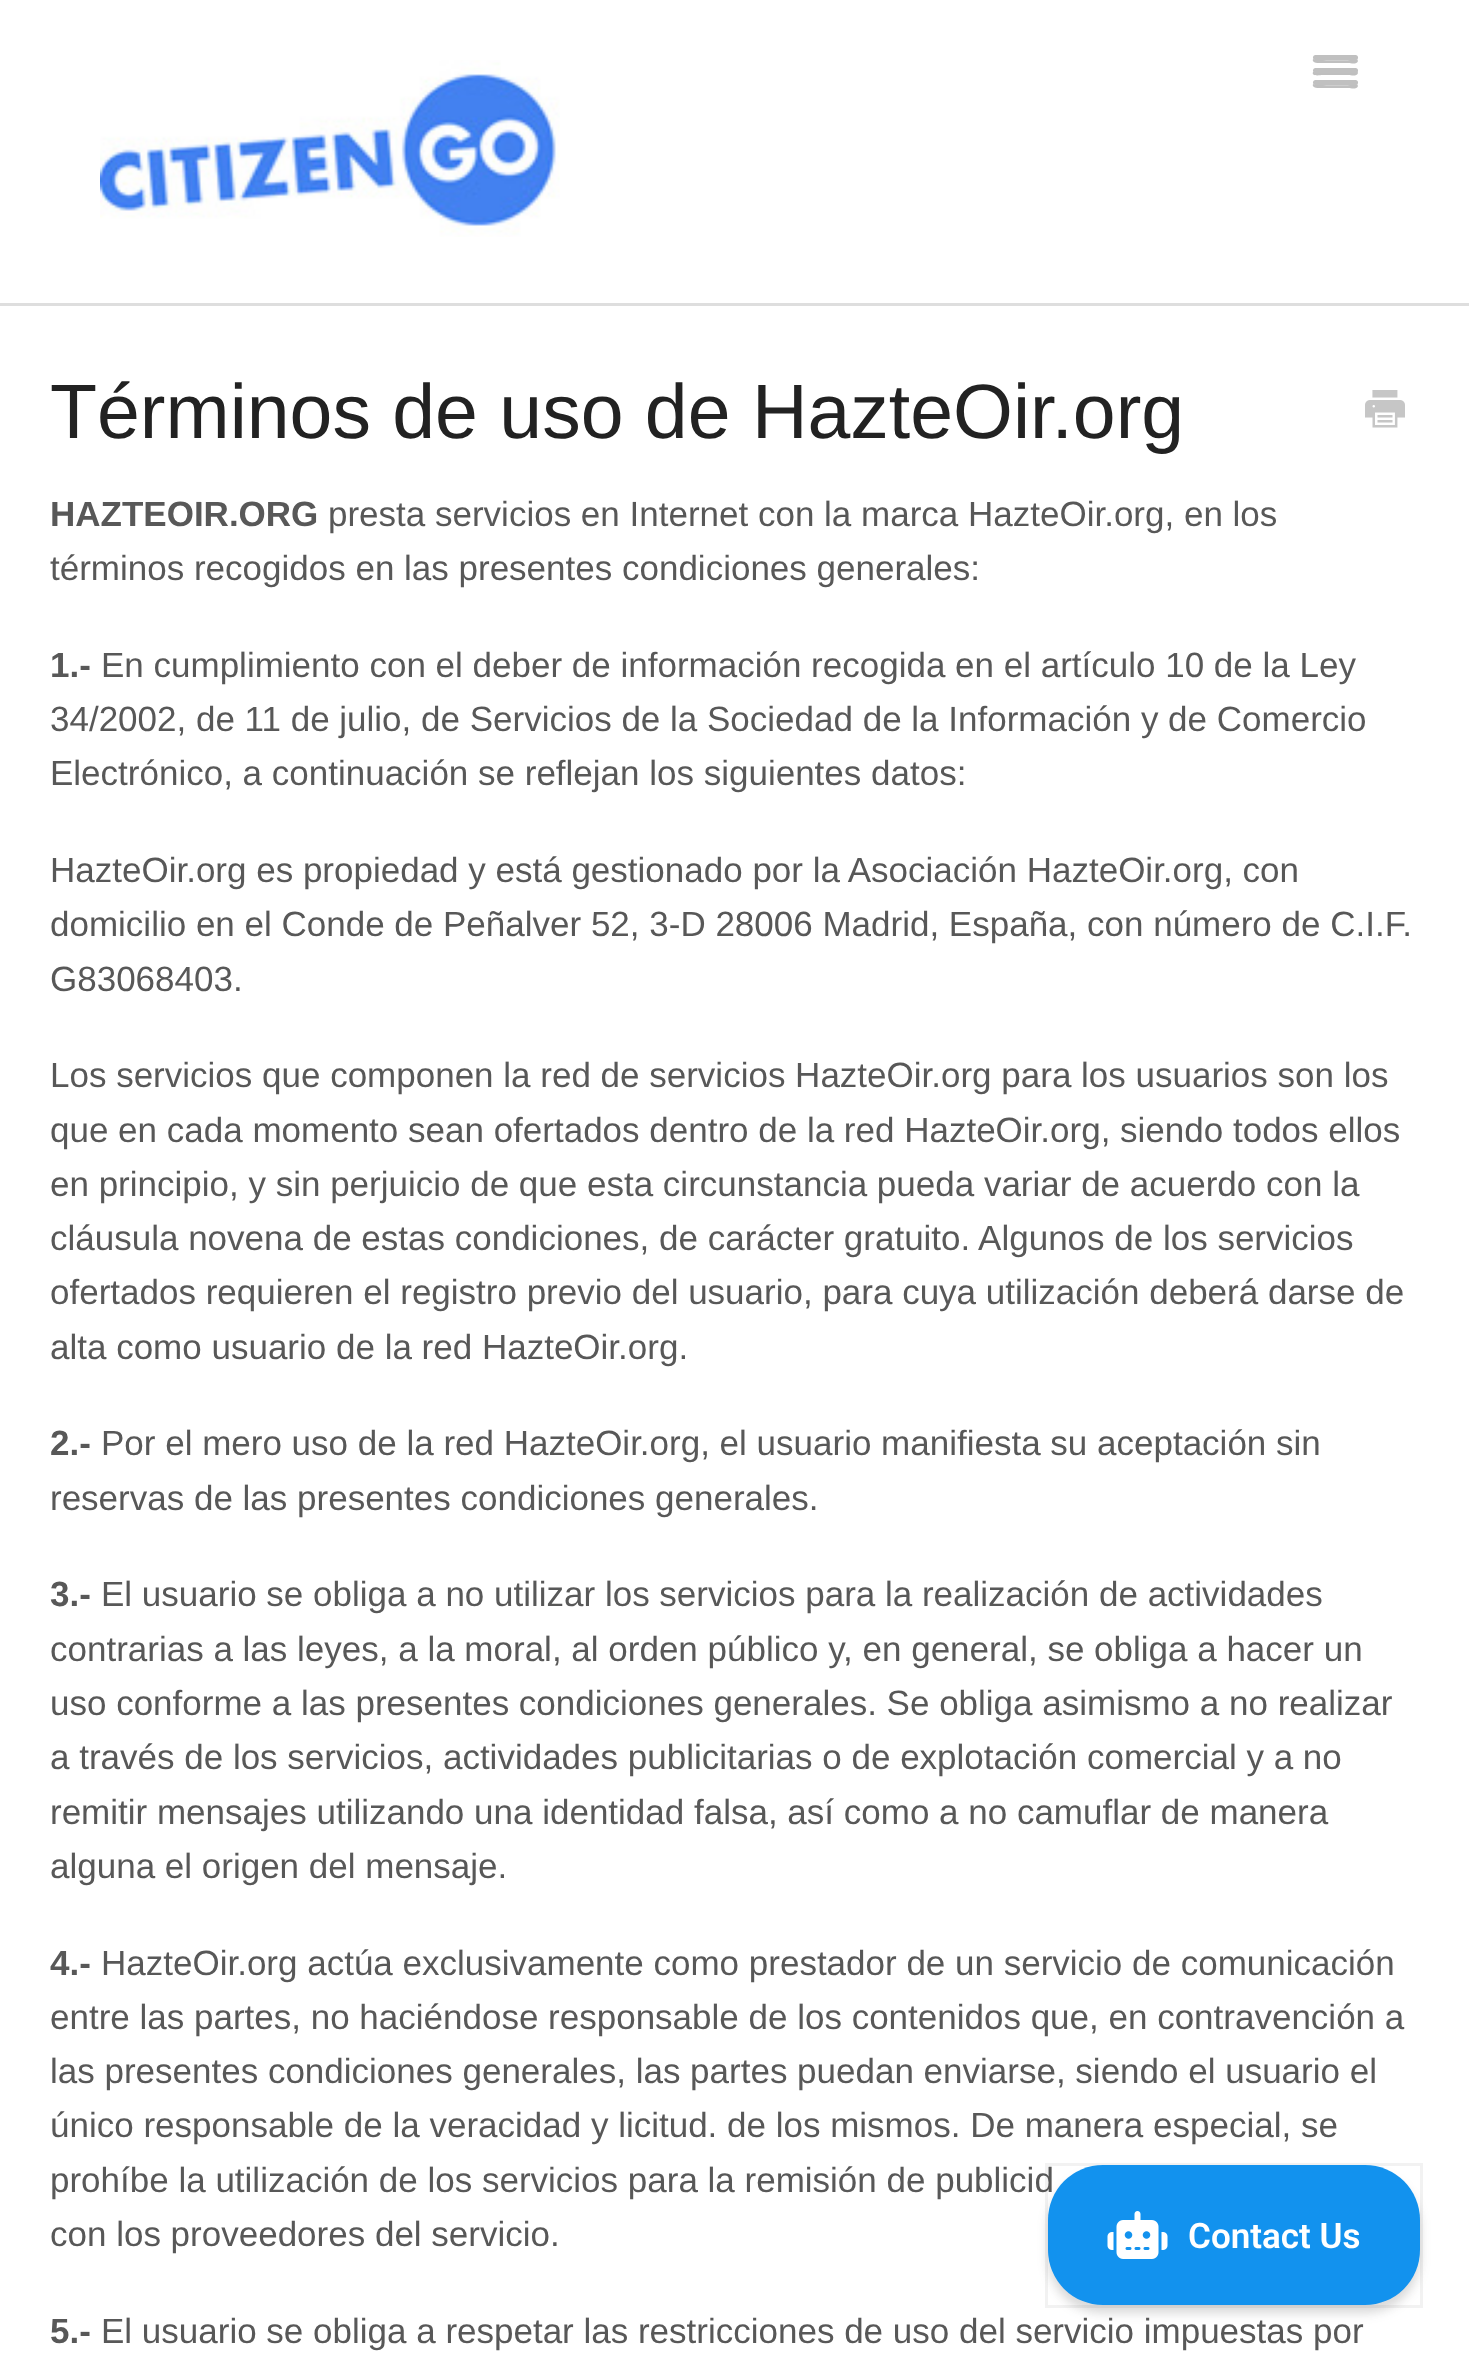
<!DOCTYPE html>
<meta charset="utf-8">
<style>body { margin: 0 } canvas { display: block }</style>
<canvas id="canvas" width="1469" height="2355"></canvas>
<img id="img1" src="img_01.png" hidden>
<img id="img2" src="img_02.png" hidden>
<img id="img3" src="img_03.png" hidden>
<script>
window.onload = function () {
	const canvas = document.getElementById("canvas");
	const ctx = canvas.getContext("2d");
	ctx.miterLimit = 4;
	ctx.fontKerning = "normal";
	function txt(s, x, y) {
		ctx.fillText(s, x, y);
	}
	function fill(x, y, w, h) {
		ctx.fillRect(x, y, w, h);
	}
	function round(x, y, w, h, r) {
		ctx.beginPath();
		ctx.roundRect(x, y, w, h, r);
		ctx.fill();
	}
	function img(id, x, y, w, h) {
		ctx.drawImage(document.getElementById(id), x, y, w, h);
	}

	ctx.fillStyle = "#FFFFFF";
	fill(0, 0, 1469, 2355);
	img("img1", 100, 60, 460, 177);
	ctx.fillStyle = "#BFBFBF";
	ctx.beginPath();
	ctx.moveTo(1313, 59);
	ctx.bezierCurveTo(1311, 64, 1322, 63, 1322, 63);
	ctx.lineTo(1349, 63);
	ctx.bezierCurveTo(1350, 63, 1357, 65, 1358, 61);
	ctx.lineTo(1357, 59);
	ctx.lineTo(1355, 60);
	ctx.bezierCurveTo(1352, 60, 1315, 61, 1313, 59);
	ctx.closePath();
	ctx.fill();
	ctx.fillStyle = "#C0C0C0";
	round(1313, 55, 45, 5, 2.5);
	ctx.fillStyle = "#BFBFBF";
	ctx.beginPath();
	ctx.moveTo(1313, 72);
	ctx.bezierCurveTo(1311, 77, 1321, 75, 1322, 75);
	ctx.lineTo(1349, 75);
	ctx.bezierCurveTo(1350, 75, 1357, 77, 1358, 73);
	ctx.lineTo(1357, 71);
	ctx.lineTo(1355, 72);
	ctx.lineTo(1315, 72);
	ctx.closePath();
	ctx.fill();
	ctx.fillStyle = "#C0C0C0";
	round(1313, 68, 45, 5, 2.5);
	ctx.fillStyle = "#BFBFBF";
	ctx.beginPath();
	ctx.moveTo(1313, 84);
	ctx.bezierCurveTo(1311, 89, 1322, 88, 1322, 88);
	ctx.lineTo(1349, 88);
	ctx.bezierCurveTo(1350, 88, 1357, 90, 1358, 86);
	ctx.lineTo(1357, 84);
	ctx.lineTo(1355, 85);
	ctx.bezierCurveTo(1352, 85, 1315, 86, 1313, 84);
	ctx.closePath();
	ctx.fill();
	ctx.fillStyle = "#C0C0C0";
	round(1313, 80, 45, 5, 2.5);
	ctx.fillStyle = "#DEDEDE";
	fill(0, 303, 1469, 3);
	img("img2", 1365, 390, 40, 38);
	ctx.fillStyle = "rgba(0, 0, 0, 0.05)";
	ctx.filter = "blur(4px)";
	ctx.beginPath();
	ctx.roundRect(1048, 2173, 372, 140, 55);
	ctx.fill();
	ctx.filter = "none";
	ctx.fillStyle = "rgba(0, 0, 0, 0.1)";
	ctx.filter = "blur(6px)";
	ctx.beginPath();
	ctx.roundRect(1048, 2173, 372, 140, 55);
	ctx.fill();
	ctx.filter = "none";
	ctx.font = "77px Liberation Sans";
	ctx.fillStyle = "#222222";
	txt("Términos de uso de HazteOir.org", 50, 438);
	ctx.font = "bold 35px Liberation Sans";
	ctx.fillStyle = "#585858";
	txt("HAZTEOIR.ORG", 50, 526);
	ctx.font = "35px Liberation Sans";
	txt("presta servicios en Internet con la marca HazteOir.org, en los", 328, 526);
	txt("términos recogidos en las presentes condiciones generales:", 50, 580);
	ctx.font = "bold 35px Liberation Sans";
	txt("1.-", 50, 677);
	ctx.font = "35px Liberation Sans";
	txt("En cumplimiento con el deber de información recogida en el artículo 10 de la Ley", 101, 677);
	txt("34/2002, de 11 de julio, de Servicios de la Sociedad de la Información y de Comercio", 50, 731);
	txt("Electrónico, a continuación se reflejan los siguientes datos:", 50, 785);
	txt("HazteOir.org es propiedad y está gestionado por la Asociación HazteOir.org, con", 50, 882);
	txt("domicilio en el Conde de Peñalver 52, 3-D 28006 Madrid, España, con número de C.I.F.", 50, 936);
	txt("G83068403.", 50, 991);
	txt("Los servicios que componen la red de servicios HazteOir.org para los usuarios son los", 50, 1087);
	txt("que en cada momento sean ofertados dentro de la red HazteOir.org, siendo todos ellos", 50, 1142);
	txt("en principio, y sin perjuicio de que esta circunstancia pueda variar de acuerdo con la", 50, 1196);
	txt("cláusula novena de estas condiciones, de carácter gratuito. Algunos de los servicios", 50, 1250);
	txt("ofertados requieren el registro previo del usuario, para cuya utilización deberá darse de", 50, 1304);
	txt("alta como usuario de la red HazteOir.org.", 50, 1359);
	ctx.font = "bold 35px Liberation Sans";
	txt("2.-", 50, 1455);
	ctx.font = "35px Liberation Sans";
	txt("Por el mero uso de la red HazteOir.org, el usuario manifiesta su aceptación sin", 101, 1455);
	txt("reservas de las presentes condiciones generales.", 50, 1510);
	ctx.font = "bold 35px Liberation Sans";
	txt("3.-", 50, 1606);
	ctx.font = "35px Liberation Sans";
	txt("El usuario se obliga a no utilizar los servicios para la realización de actividades", 101, 1606);
	txt("contrarias a las leyes, a la moral, al orden público y, en general, se obliga a hacer un", 50, 1661);
	txt("uso conforme a las presentes condiciones generales. Se obliga asimismo a no realizar", 50, 1715);
	txt("a través de los servicios, actividades publicitarias o de explotación comercial y a no", 50, 1769);
	txt("remitir mensajes utilizando una identidad falsa, así como a no camuflar de manera", 50, 1824);
	txt("alguna el origen del mensaje.", 50, 1878);
	ctx.font = "bold 35px Liberation Sans";
	txt("4.-", 50, 1975);
	ctx.font = "35px Liberation Sans";
	txt("HazteOir.org actúa exclusivamente como prestador de un servicio de comunicación", 101, 1975);
	txt("entre las partes, no haciéndose responsable de los contenidos que, en contravención a", 50, 2029);
	txt("las presentes condiciones generales, las partes puedan enviarse, siendo el usuario el", 50, 2083);
	txt("único responsable de la veracidad y licitud. de los mismos. De manera especial, se", 50, 2137);
	txt("prohíbe la utilización de los servicios para la remisión de publicid", 50, 2192);
	txt("con los proveedores del servicio.", 50, 2246);
	ctx.font = "bold 35px Liberation Sans";
	txt("5.-", 50, 2343);
	ctx.font = "35px Liberation Sans";
	txt("El usuario se obliga a respetar las restricciones de uso del servicio impuestas por", 101, 2343);
	ctx.strokeStyle = "rgba(0, 0, 0, 0.05)";
	ctx.lineWidth = 3;
	ctx.strokeRect(1046.5, 2164.5, 375, 142);
	ctx.fillStyle = "#1292EE";
	round(1048, 2165, 372, 140, 55);
	img("img3", 1107, 2211, 61, 48);
	ctx.font = "600 35px Roboto";
	ctx.fillStyle = "#FFFFFF";
	txt("Contact Us", 1188, 2248);
};
</script>
